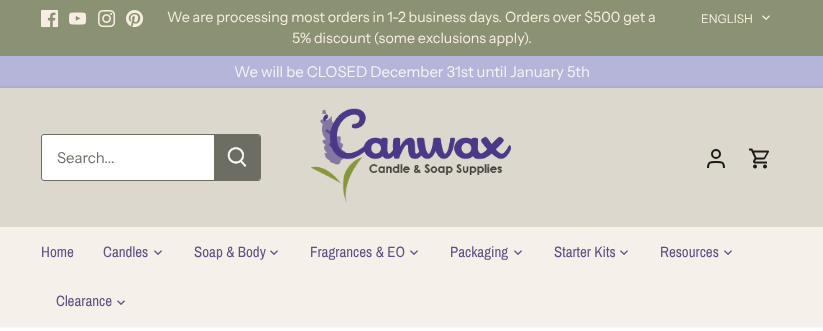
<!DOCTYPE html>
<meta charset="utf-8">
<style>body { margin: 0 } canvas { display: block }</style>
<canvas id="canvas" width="823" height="331"></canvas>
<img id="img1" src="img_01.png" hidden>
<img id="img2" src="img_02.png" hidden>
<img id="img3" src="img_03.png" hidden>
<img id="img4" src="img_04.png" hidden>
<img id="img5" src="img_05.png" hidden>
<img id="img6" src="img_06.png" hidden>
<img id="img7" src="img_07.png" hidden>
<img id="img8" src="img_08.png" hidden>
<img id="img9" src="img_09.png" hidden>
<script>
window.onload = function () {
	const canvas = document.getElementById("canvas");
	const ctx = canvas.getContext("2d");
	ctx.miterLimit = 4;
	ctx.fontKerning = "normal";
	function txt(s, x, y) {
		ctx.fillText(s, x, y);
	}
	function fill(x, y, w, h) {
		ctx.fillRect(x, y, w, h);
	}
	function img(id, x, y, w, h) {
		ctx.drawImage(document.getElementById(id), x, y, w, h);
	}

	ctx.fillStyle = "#FFFFFF";
	fill(0, 0, 823, 331);
	ctx.fillStyle = "#8B9173";
	fill(0, 0, 823, 56);
	img("img1", 41, 10, 18, 18);
	img("img2", 69, 12, 18, 13);
	img("img3", 98, 10, 18, 18);
	img("img4", 126, 10, 18, 18);
	img("img5", 762, 15, 8, 5);
	ctx.fillStyle = "#B5B5DA";
	fill(0, 56, 823, 32);
	ctx.fillStyle = "rgba(0, 0, 0, 0.08)";
	ctx.filter = "blur(1.5px)";
	ctx.beginPath();
	ctx.rect(-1, 87, 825, 240);
	ctx.fill();
	ctx.filter = "none";
	ctx.fillStyle = "#F6F0EB";
	fill(0, 227, 823, 99);
	ctx.fillStyle = "#DCD8CE";
	fill(0, 88, 823, 139);
	ctx.beginPath();
	ctx.roundRect(41.5, 134.5, 219, 46, 2.5);
	ctx.strokeStyle = "#6C6E64";
	ctx.stroke();
	ctx.fillStyle = "#FFFFFF";
	ctx.beginPath();
	ctx.roundRect(42, 135, 173, 45, [3, 0, 0, 3]);
	ctx.fill();
	ctx.fillStyle = "#6C6E64";
	ctx.beginPath();
	ctx.roundRect(214, 135, 46, 45, [0, 2, 2, 0]);
	ctx.fill();
	img("img6", 227, 147, 20, 20);
	img("img7", 311, 108, 200, 94);
	ctx.beginPath();
	ctx.arc(716, 154, 4, 0, Math.PI * 2);
	ctx.strokeStyle = "#1B1B1B";
	ctx.lineWidth = 2;
	ctx.stroke();
	ctx.beginPath();
	ctx.moveTo(724, 168);
	ctx.bezierCurveTo(724, 161.5, 721.5, 162, 716, 162);
	ctx.bezierCurveTo(710.5, 162, 708, 161.5, 708, 168);
	ctx.stroke();
	img("img8", 749, 148, 20, 21);
	img("img9", 154, 250, 8, 5);
	img("img9", 270, 250, 8, 5);
	img("img9", 410, 250, 8, 5);
	img("img9", 514, 250, 8, 5);
	img("img9", 620, 250, 8, 5);
	img("img9", 724, 250, 8, 5);
	img("img9", 117, 300, 8, 5);
	ctx.font = "14.25px Instrument Sans";
	ctx.fillStyle = "#F8EDE3";
	txt("We are processing most orders in 1-2 business days. Orders over $500 get a", 167, 22);
	txt("5% discount (some exclusions apply).", 292, 43);
	ctx.font = "12px Instrument Sans";
	txt("ENGLISH", 701, 23);
	ctx.font = "15px Instrument Sans";
	ctx.fillStyle = "#F4F4F4";
	txt("We will be CLOSED December 31st until January 5th", 234, 77);
	ctx.fillStyle = "#6C6E64";
	txt("Search...", 57, 163);
	ctx.font = "15px Archivo Narrow";
	ctx.fillStyle = "#614F82";
	txt("Home", 41, 257);
	txt("Candles", 103, 257);
	txt("Soap & Body", 194, 257);
	txt("Fragrances & EO", 310, 257);
	txt("Packaging", 450, 257);
	txt("Starter Kits", 554, 257);
	txt("Resources", 660, 257);
	txt("Clearance", 56, 306);
};
</script>
